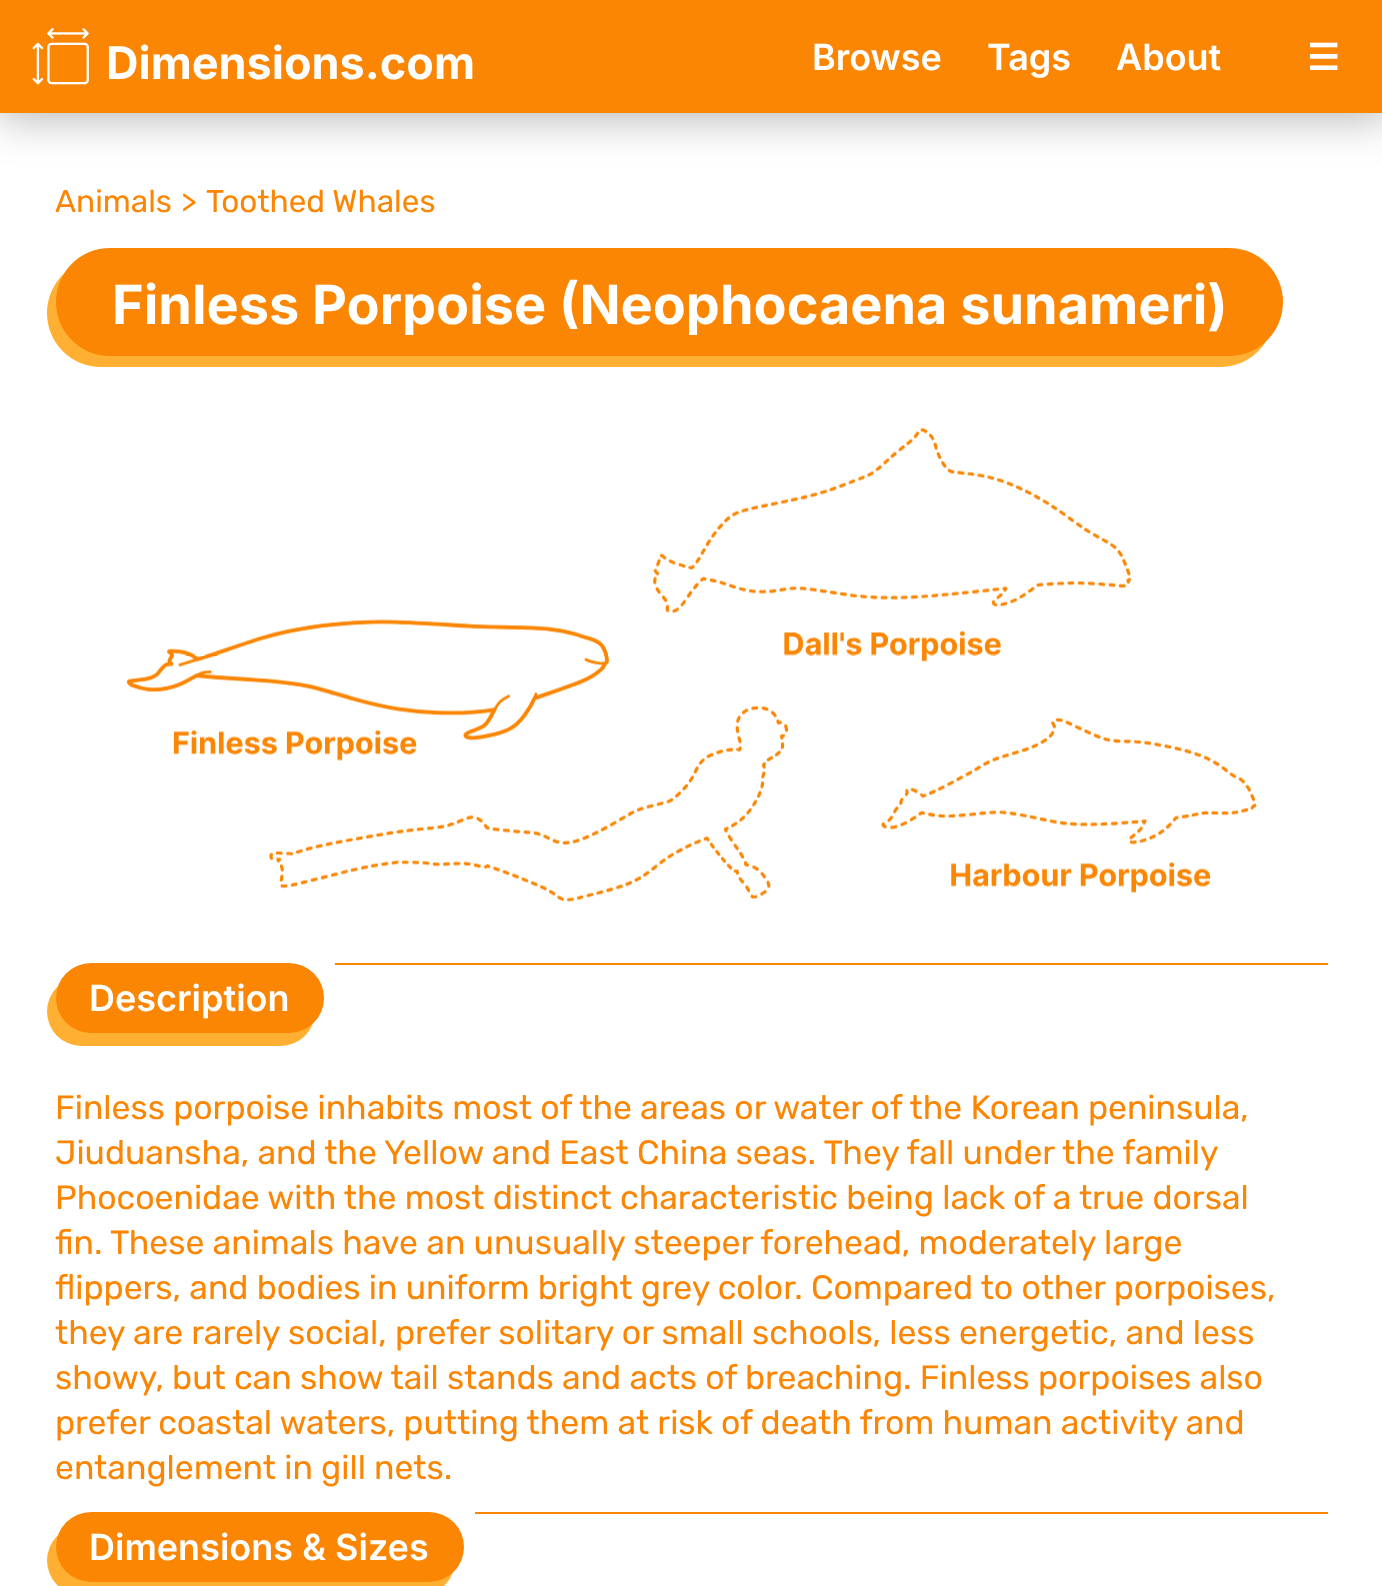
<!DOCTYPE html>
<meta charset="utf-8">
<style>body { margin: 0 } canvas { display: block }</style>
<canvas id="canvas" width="1382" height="1586"></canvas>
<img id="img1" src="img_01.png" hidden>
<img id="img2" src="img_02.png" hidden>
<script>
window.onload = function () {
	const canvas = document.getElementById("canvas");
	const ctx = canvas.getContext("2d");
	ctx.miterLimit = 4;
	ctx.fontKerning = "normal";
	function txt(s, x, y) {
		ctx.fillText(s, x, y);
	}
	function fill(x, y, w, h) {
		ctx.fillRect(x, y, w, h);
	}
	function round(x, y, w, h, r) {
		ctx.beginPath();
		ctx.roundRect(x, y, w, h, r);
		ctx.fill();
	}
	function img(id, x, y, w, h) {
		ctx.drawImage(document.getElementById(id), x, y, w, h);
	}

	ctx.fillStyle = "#FFFFFF";
	fill(0, 0, 1382, 1586);
	ctx.fillStyle = "rgba(0, 0, 0, 0.3)";
	ctx.filter = "blur(22.5px)";
	ctx.beginPath();
	ctx.rect(-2, -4, 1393, 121);
	ctx.fill();
	ctx.filter = "none";
	ctx.fillStyle = "#FB8604";
	fill(0, 0, 1382, 113);
	img("img1", 32, 28, 57, 57);
	ctx.fillStyle = "#FFB033";
	round(47, 259, 1227, 108, 54);
	ctx.fillStyle = "#FB8604";
	round(56, 248, 1227, 108, 54);
	img("img2", 126, 427, 1131, 475);
	fill(335, 963, 993, 2);
	ctx.fillStyle = "#FFB033";
	round(47, 977, 268, 69, 34.5);
	ctx.fillStyle = "#FB8604";
	round(56, 963, 268, 70, 35);
	fill(475, 1512, 853, 2);
	ctx.fillStyle = "#FFB033";
	round(47, 1526, 408, 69, 34.5);
	ctx.fillStyle = "#FB8604";
	round(56, 1512, 408, 70, 35);
	ctx.font = "bold 45px Inter";
	ctx.fillStyle = "#FFFFFF";
	txt("Dimensions.com", 106, 79);
	ctx.font = "600 36px Inter";
	txt("Browse", 812, 70);
	txt("Tags", 987, 70);
	txt("About", 1116, 70);
	ctx.font = "bold 36px DejaVu Sans";
	txt("☰", 1307, 70);
	ctx.font = "31.5px Rubik";
	ctx.fillStyle = "#FB8604";
	txt("Animals", 55, 212);
	txt(">", 181, 212);
	txt("Toothed Whales", 206, 212);
	ctx.font = "bold 54px Inter";
	ctx.fillStyle = "#FFFFFF";
	txt("Finless Porpoise (Neophocaena sunameri)", 112, 324);
	ctx.font = "600 36px Inter";
	txt("Description", 89, 1011);
	ctx.font = "33.75px Rubik";
	ctx.fillStyle = "#FB8604";
	txt("Finless porpoise inhabits most of the areas or water of the Korean peninsula,", 55, 1119);
	txt("Jiuduansha, and the Yellow and East China seas. They fall under the family", 55, 1164);
	txt("Phocoenidae with the most distinct characteristic being lack of a true dorsal", 55, 1209);
	txt("fin. These animals have an unusually steeper forehead, moderately large", 55, 1254);
	txt("flippers, and bodies in uniform bright grey color. Compared to other porpoises,", 55, 1299);
	txt("they are rarely social, prefer solitary or small schools, less energetic, and less", 55, 1344);
	txt("showy, but can show tail stands and acts of breaching. Finless porpoises also", 55, 1389);
	txt("prefer coastal waters, putting them at risk of death from human activity and", 55, 1434);
	txt("entanglement in gill nets.", 55, 1479);
	ctx.font = "600 36px Inter";
	ctx.fillStyle = "#FFFFFF";
	txt("Dimensions & Sizes", 89, 1560);
};
</script>
